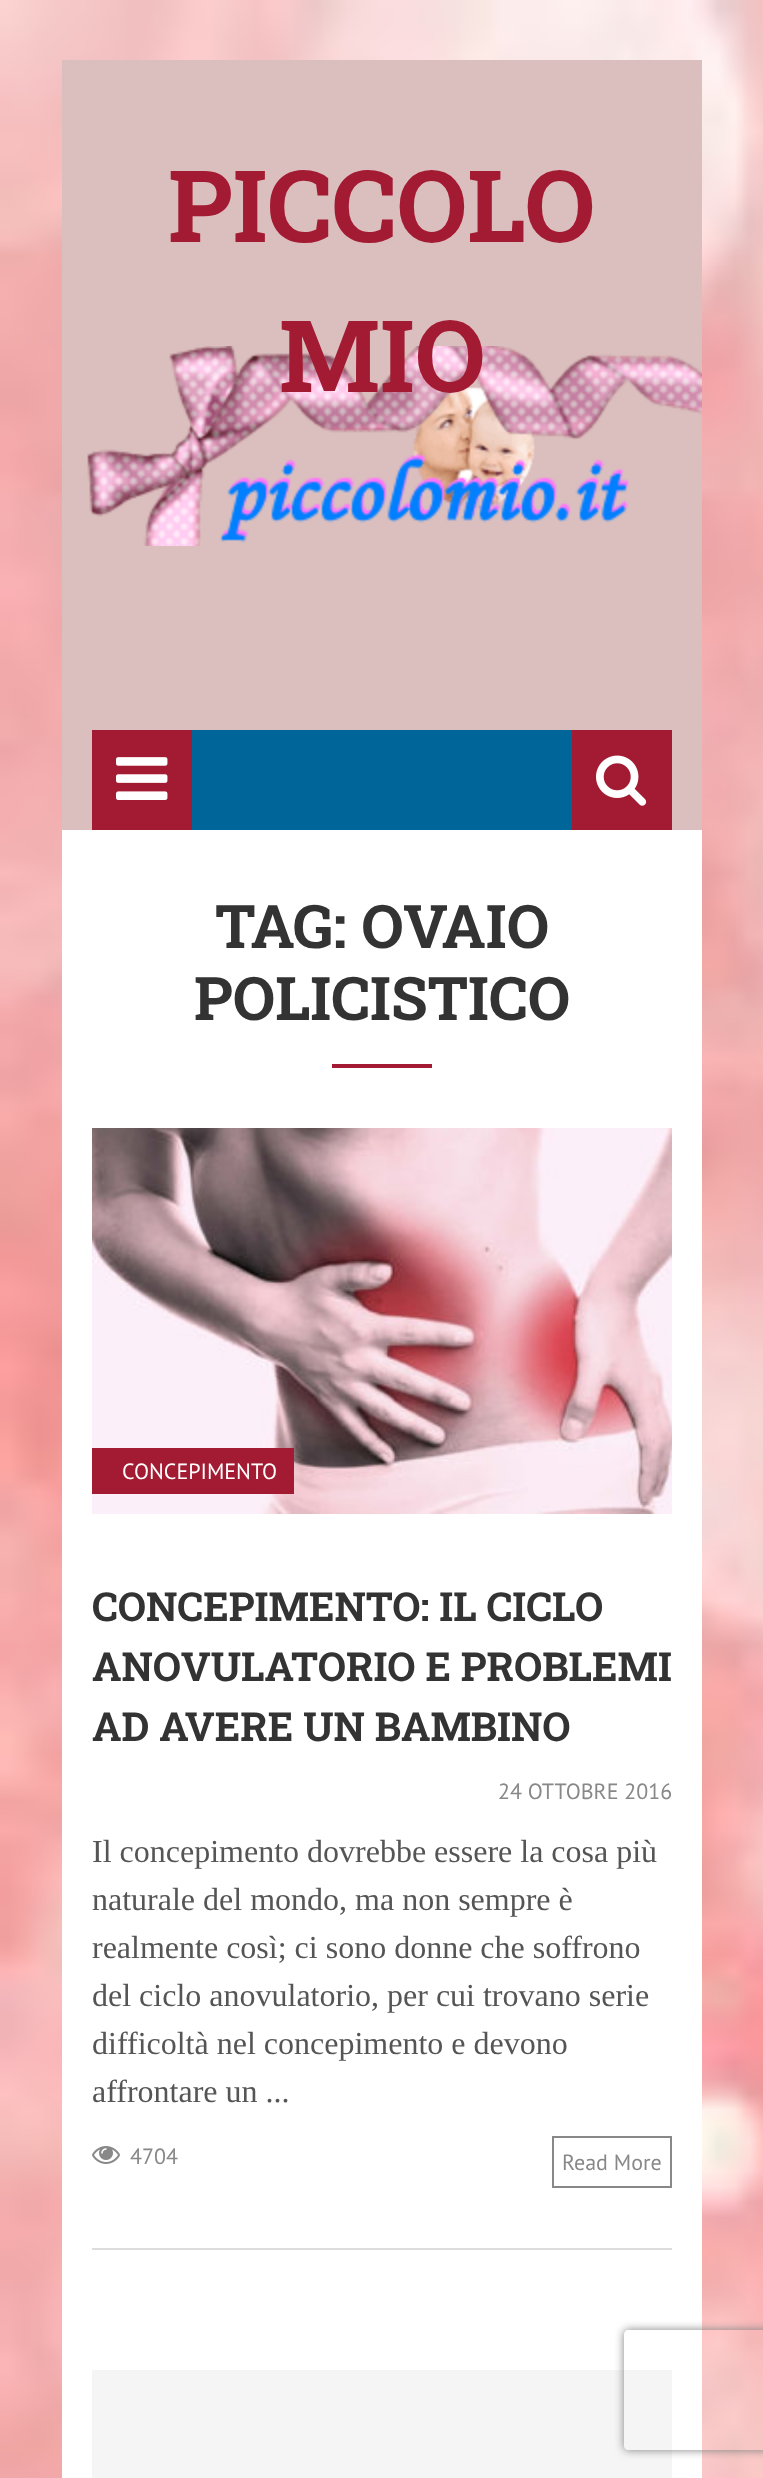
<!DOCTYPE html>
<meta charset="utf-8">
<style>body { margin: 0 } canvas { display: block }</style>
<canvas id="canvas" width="763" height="2478"></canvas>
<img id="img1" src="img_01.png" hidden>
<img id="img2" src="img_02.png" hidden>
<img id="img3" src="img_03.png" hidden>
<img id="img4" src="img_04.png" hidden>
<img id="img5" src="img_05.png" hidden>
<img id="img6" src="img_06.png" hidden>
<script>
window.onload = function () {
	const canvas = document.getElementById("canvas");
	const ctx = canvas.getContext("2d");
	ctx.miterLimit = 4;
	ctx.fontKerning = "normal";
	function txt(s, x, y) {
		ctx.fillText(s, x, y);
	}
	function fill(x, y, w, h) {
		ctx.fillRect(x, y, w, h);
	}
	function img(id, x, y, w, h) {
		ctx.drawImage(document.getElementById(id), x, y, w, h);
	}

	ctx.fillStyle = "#FFFFFF";
	fill(0, 0, 763, 2478);
	img("img1", 0, 0, 763, 2478);
	fill(62, 830, 640, 1648);
	ctx.fillStyle = "#DBBEBE";
	fill(62, 60, 640, 770);
	img("img2", 87, 346, 615, 200);
	ctx.fillStyle = "#006699";
	fill(192, 730, 380, 100);
	ctx.fillStyle = "#A31B32";
	fill(92, 730, 100, 100);
	img("img3", 116, 757, 52, 43);
	fill(572, 730, 100, 100);
	img("img4", 596, 755, 51, 51);
	fill(332, 1064, 100, 4);
	ctx.fillStyle = "#DDDDDD";
	fill(92, 2248, 580, 2);
	img("img5", 92, 1128, 580, 386);
	ctx.fillStyle = "#A31B32";
	fill(92, 1448, 202, 46);
	img("img6", 92, 2146, 28, 18);
	ctx.strokeStyle = "#888888";
	ctx.lineWidth = 2;
	ctx.strokeRect(553, 2137, 118, 50);
	ctx.fillStyle = "#F5F5F5";
	fill(92, 2370, 580, 108);
	ctx.save();
	ctx.beginPath();
	ctx.moveTo(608, 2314);
	ctx.lineTo(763, 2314);
	ctx.lineTo(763, 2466);
	ctx.lineTo(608, 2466);
	ctx.closePath();
	ctx.moveTo(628, 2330);
	ctx.lineTo(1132, 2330);
	ctx.bezierCurveTo(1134, 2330, 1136, 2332, 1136, 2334);
	ctx.lineTo(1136, 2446);
	ctx.bezierCurveTo(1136, 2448, 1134, 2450, 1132, 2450);
	ctx.lineTo(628, 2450);
	ctx.bezierCurveTo(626, 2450, 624, 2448, 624, 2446);
	ctx.lineTo(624, 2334);
	ctx.bezierCurveTo(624, 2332, 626, 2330, 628, 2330);
	ctx.closePath();
	ctx.clip("evenodd");
	ctx.fillStyle = "#808080";
	ctx.filter = "blur(5px)";
	ctx.beginPath();
	ctx.roundRect(624, 2330, 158, 120, 4);
	ctx.fill();
	ctx.filter = "none";
	ctx.restore();
	ctx.font = "bold 100px Roboto Slab";
	ctx.fillStyle = "#A31B32";
	txt("PICCOLO", 168, 242);
	txt("MIO", 279, 392);
	ctx.font = "bold 60px Roboto Slab";
	ctx.fillStyle = "#333333";
	txt("TAG: OVAIO", 215, 948);
	txt("POLICISTICO", 194, 1020);
	ctx.font = "22px PT Sans";
	ctx.fillStyle = "#FFFFFF";
	txt("CONCEPIMENTO", 122, 1479);
	ctx.font = "bold 40px Roboto Slab";
	ctx.fillStyle = "#333333";
	txt("CONCEPIMENTO: IL CICLO", 92, 1621);
	txt("ANOVULATORIO E PROBLEMI", 92, 1681);
	txt("AD AVERE UN BAMBINO", 92, 1741);
	ctx.font = "22px PT Sans";
	ctx.fillStyle = "#888888";
	txt("24 OTTOBRE 2016", 498, 1799);
	ctx.font = "32px Liberation Serif";
	ctx.fillStyle = "#555555";
	txt("Il concepimento dovrebbe essere la cosa più", 92, 1862);
	txt("naturale del mondo, ma non sempre è", 92, 1910);
	txt("realmente così; ci sono donne che soffrono", 92, 1958);
	txt("del ciclo anovulatorio, per cui trovano serie", 92, 2006);
	txt("difficoltà nel concepimento e devono", 92, 2054);
	txt("affrontare un ...", 92, 2102);
	ctx.font = "22px PT Sans";
	ctx.fillStyle = "#888888";
	txt("4704", 130, 2164);
	txt("Read More", 562, 2170);
};
</script>
